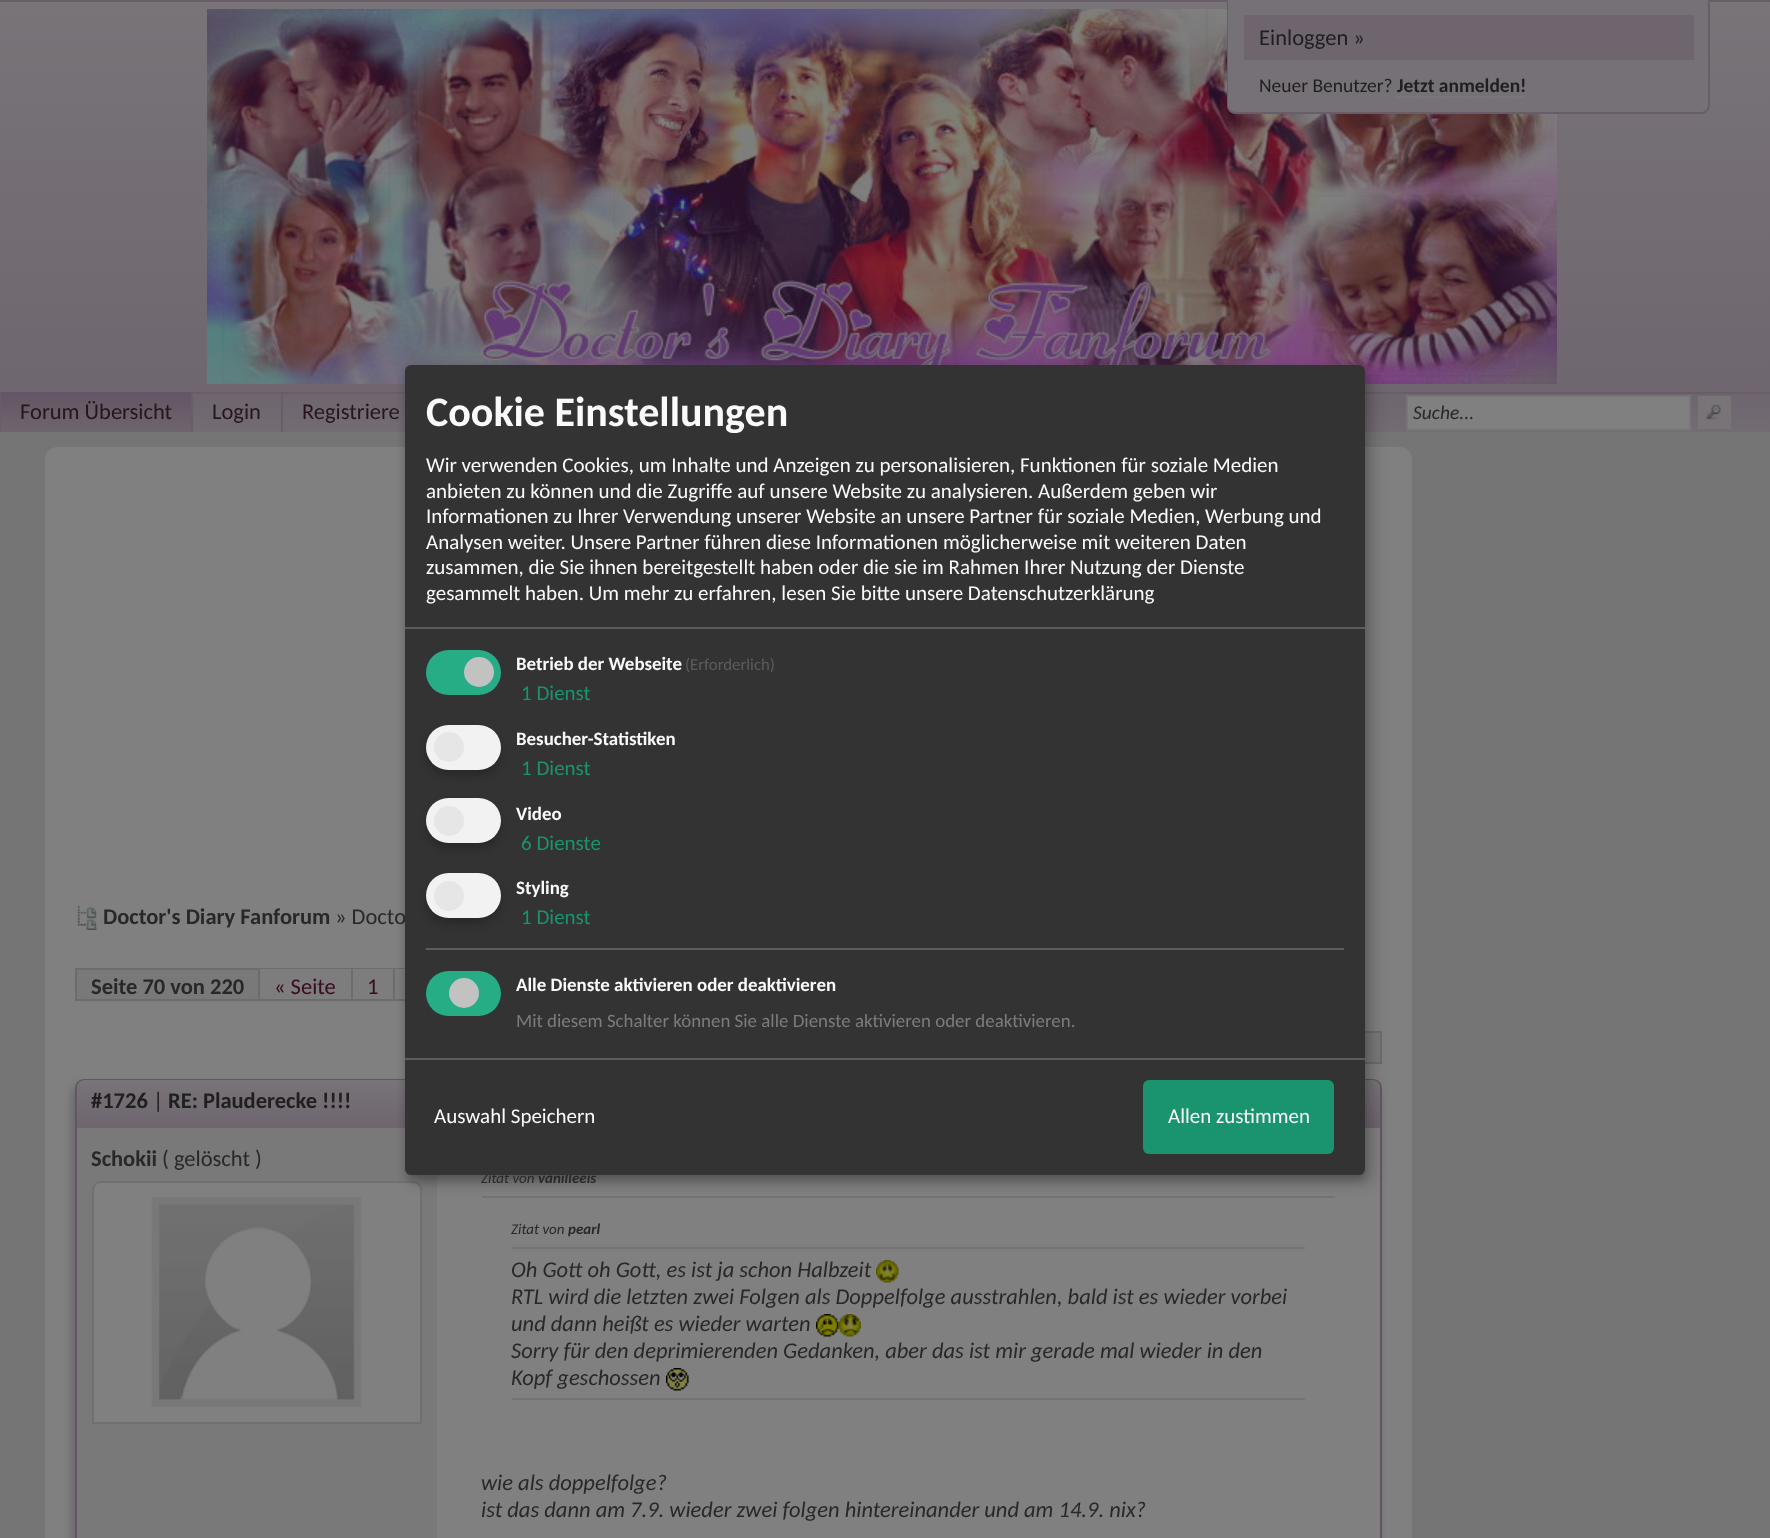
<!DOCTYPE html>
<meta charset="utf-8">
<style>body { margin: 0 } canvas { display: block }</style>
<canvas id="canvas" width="1770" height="1538"></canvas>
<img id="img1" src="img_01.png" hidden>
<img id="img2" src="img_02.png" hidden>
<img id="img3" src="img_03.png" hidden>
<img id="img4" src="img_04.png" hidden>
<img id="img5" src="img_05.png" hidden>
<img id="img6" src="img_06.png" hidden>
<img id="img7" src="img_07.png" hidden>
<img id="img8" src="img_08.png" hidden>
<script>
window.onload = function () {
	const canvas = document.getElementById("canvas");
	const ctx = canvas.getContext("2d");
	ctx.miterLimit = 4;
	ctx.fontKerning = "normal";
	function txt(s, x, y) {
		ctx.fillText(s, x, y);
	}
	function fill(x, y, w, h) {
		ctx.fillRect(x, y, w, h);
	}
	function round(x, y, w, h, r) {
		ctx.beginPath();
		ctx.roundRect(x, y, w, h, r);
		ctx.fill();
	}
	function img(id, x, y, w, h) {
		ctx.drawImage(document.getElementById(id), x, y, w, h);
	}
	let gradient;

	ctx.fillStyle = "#757575";
	fill(0, 0, 1770, 1538);
	ctx.fillStyle = "#695D69";
	fill(0, 0, 1770, 2);
	gradient = ctx.createLinearGradient(0, 1.5, 0, 432);
	gradient.addColorStop(0, "#787478");
	gradient.addColorStop(1, "#6E656E");
	ctx.fillStyle = gradient;
	fill(0, 2, 1770, 390);
	img("img1", 207, 9, 1350, 375);
	ctx.fillStyle = "#767176";
	ctx.beginPath();
	ctx.roundRect(1227, 0, 483, 114, [0, 0, 9, 9]);
	ctx.fill();
	ctx.fillStyle = "#695D69";
	ctx.beginPath();
	ctx.moveTo(1227, 0);
	ctx.lineTo(1710, 0);
	ctx.lineTo(1710, 105);
	ctx.bezierCurveTo(1710, 110, 1706, 114, 1701, 114);
	ctx.lineTo(1236, 114);
	ctx.bezierCurveTo(1231, 114, 1227, 110, 1227, 105);
	ctx.closePath();
	ctx.moveTo(1228, 0);
	ctx.lineTo(1708, 0);
	ctx.lineTo(1708, 105);
	ctx.bezierCurveTo(1708, 109, 1705, 112, 1701, 112);
	ctx.lineTo(1236, 112);
	ctx.bezierCurveTo(1232, 112, 1228, 109, 1228, 105);
	ctx.closePath();
	ctx.fill("evenodd");
	ctx.fillStyle = "#6E656E";
	fill(1244, 15, 450, 45);
	ctx.beginPath();
	ctx.moveTo(1396.5, 97);
	ctx.lineTo(1525.5, 97);
	ctx.strokeStyle = "#808080";
	ctx.lineWidth = 1.5;
	ctx.setLineDash([1.5, 1.5]);
	ctx.stroke();
	gradient = ctx.createLinearGradient(0, 392, 0, 432);
	gradient.addColorStop(0, "#6E656E");
	gradient.addColorStop(1, "#736C73");
	ctx.fillStyle = gradient;
	fill(193, 394, 1577, 38);
	ctx.fillStyle = "#695D69";
	fill(193, 392, 1577, 2);
	gradient = ctx.createLinearGradient(0, 392, 0, 432);
	gradient.addColorStop(0, "#645564");
	gradient.addColorStop(1, "#6E656E");
	ctx.fillStyle = gradient;
	fill(1, 392, 190, 40);
	ctx.fillStyle = "#695D69";
	fill(191, 392, 2, 40);
	fill(0, 392, 1, 40);
	fill(281, 392, 2, 40);
	ctx.fillStyle = "#808080";
	ctx.beginPath();
	ctx.rect(1407, 396, 283, 34);
	ctx.fill();
	ctx.strokeStyle = "#787478";
	ctx.lineWidth = 2;
	ctx.setLineDash([]);
	ctx.stroke();
	ctx.fillStyle = "#787478";
	fill(1698, 396, 33, 33);
	img("img2", 1705, 404, 16, 16);
	ctx.fillStyle = "#808080";
	round(45, 447, 1367, 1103, 12);
	ctx.fillStyle = "#797979";
	fill(77, 970, 181, 29);
	ctx.strokeStyle = "#6C6C6C";
	ctx.strokeRect(76, 969, 1119, 31);
	ctx.fillStyle = "#7D7D7D";
	fill(353, 969, 40, 30);
	fill(395, 969, 10, 30);
	ctx.fillStyle = "#6C6C6C";
	fill(393, 969, 2, 30);
	ctx.fillStyle = "#797979";
	fill(1365, 1033, 15, 29);
	ctx.strokeRect(778, 1032, 603, 31);
	ctx.save();
	ctx.beginPath();
	ctx.moveTo(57, 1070);
	ctx.lineTo(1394, 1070);
	ctx.lineTo(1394, 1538);
	ctx.lineTo(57, 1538);
	ctx.closePath();
	ctx.moveTo(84, 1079);
	ctx.lineTo(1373, 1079);
	ctx.bezierCurveTo(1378, 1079, 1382, 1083, 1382, 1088);
	ctx.lineTo(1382, 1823);
	ctx.lineTo(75, 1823);
	ctx.lineTo(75, 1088);
	ctx.bezierCurveTo(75, 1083, 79, 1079, 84, 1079);
	ctx.closePath();
	ctx.clip("evenodd");
	ctx.fillStyle = "#666666";
	ctx.filter = "blur(4.5px)";
	ctx.beginPath();
	ctx.roundRect(72, 1085, 1307, 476, 9);
	ctx.fill();
	ctx.filter = "none";
	ctx.restore();
	ctx.beginPath();
	ctx.moveTo(84, 1080);
	ctx.lineTo(1373, 1080);
	ctx.bezierCurveTo(1377.5, 1080, 1381, 1083.5, 1381, 1088);
	ctx.lineTo(1381, 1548);
	ctx.lineTo(76, 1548);
	ctx.lineTo(76, 1088);
	ctx.bezierCurveTo(76, 1083.5, 79.5, 1080, 84, 1080);
	ctx.closePath();
	ctx.strokeStyle = "#645564";
	ctx.stroke();
	gradient = ctx.createLinearGradient(77, 1080, 77, 1128);
	gradient.addColorStop(0, "#787478");
	gradient.addColorStop(1, "#6E656E");
	ctx.fillStyle = gradient;
	ctx.beginPath();
	ctx.roundRect(77, 1080, 1303, 48, [8, 8, 0, 0]);
	ctx.fill();
	ctx.fillStyle = "#797979";
	fill(77, 1128, 360, 410);
	ctx.fillStyle = "#808080";
	ctx.beginPath();
	ctx.roundRect(93, 1182, 328, 241, [8, 8, 0, 0]);
	ctx.fill();
	ctx.strokeStyle = "#707070";
	ctx.stroke();
	ctx.fillStyle = "#737373";
	fill(482, 1196, 853, 2);
	ctx.fillStyle = "rgba(0, 0, 0, 0.19)";
	ctx.filter = "blur(7.5px)";
	ctx.beginPath();
	ctx.roundRect(413, 372, 960, 810, 6);
	ctx.fill();
	ctx.filter = "none";
	ctx.fillStyle = "rgba(0, 0, 0, 0.2)";
	ctx.filter = "blur(4.5px)";
	ctx.beginPath();
	ctx.roundRect(405, 371, 960, 810, 6);
	ctx.fill();
	ctx.filter = "none";
	img("img3", 77, 906, 21, 24);
	ctx.fillStyle = "#7D7D7D";
	fill(260, 969, 91, 30);
	ctx.fillStyle = "#6C6C6C";
	fill(258, 969, 2, 30);
	fill(351, 969, 2, 30);
	img("img4", 151, 1197, 211, 210);
	ctx.fillStyle = "#737373";
	fill(512, 1247, 793, 2);
	img("img5", 876, 1260, 23, 23);
	img("img6", 816, 1314, 23, 23);
	img("img7", 838, 1314, 23, 23);
	img("img8", 666, 1368, 23, 23);
	fill(512, 1398, 793, 2);
	ctx.font = "22.5px Carlito";
	ctx.fillStyle = "#1F1F1F";
	txt("Einloggen »", 1259, 45);
	ctx.font = "19.5px Carlito";
	txt("Neuer Benutzer?", 1259, 92);
	ctx.font = "bold 19.5px Carlito";
	txt("Jetzt anmelden!", 1397, 92);
	ctx.font = "22.5px Carlito";
	ctx.fillStyle = "#27151D";
	txt("Forum Übersicht", 20, 419);
	txt("Login", 212, 419);
	txt("Registriere", 302, 419);
	ctx.font = "italic 19.5px Carlito";
	ctx.fillStyle = "#282828";
	txt("Suche...", 1413, 419);
	ctx.font = "bold 22.5px Carlito";
	txt("Doctor's Diary Fanforum", 103, 924);
	ctx.font = "22.5px Carlito";
	txt("» Docto", 335, 924);
	ctx.font = "bold 22.5px Carlito";
	txt("Seite 70 von 220", 91, 994);
	ctx.font = "22.5px Carlito";
	ctx.fillStyle = "#3A0A20";
	txt("« Seite", 274, 994);
	txt("1", 367, 994);
	ctx.font = "bold 22.5px Carlito";
	ctx.fillStyle = "#1F1F1F";
	txt("#1726", 91, 1108);
	ctx.font = "22.5px Carlito";
	txt("|", 153, 1108);
	ctx.font = "bold 22.5px Carlito";
	txt("RE: Plauderecke !!!!", 168, 1108);
	ctx.fillStyle = "#282828";
	txt("Schokii", 91, 1166);
	ctx.font = "22.5px Carlito";
	txt("( gelöscht )", 162, 1166);
	ctx.font = "italic 15px Carlito";
	txt("Zitat von", 481, 1183);
	ctx.font = "italic bold 15px Carlito";
	txt("vanilleeis", 538, 1183);
	ctx.fillStyle = "#333333";
	round(405, 365, 960, 810, 6);
	ctx.fillStyle = "#27AD85";
	round(426, 971, 75, 45, 22.5);
	ctx.fillStyle = "#C2C2C2";
	ctx.beginPath();
	ctx.arc(464, 993, 15, 0, Math.PI * 2);
	ctx.fill();
	ctx.font = "18.9px Carlito";
	ctx.fillStyle = "#7C7C7C";
	txt("Mit diesem Schalter können Sie alle Dienste aktivieren oder deaktivieren.", 516, 1027);
	ctx.font = "bold 18.9px Carlito";
	ctx.fillStyle = "#FAFAFA";
	txt("Alle Dienste aktivieren oder deaktivieren", 516, 991);
	ctx.fillStyle = "#5C5C5C";
	fill(426, 948, 918, 2);
	ctx.fillStyle = "rgba(0, 0, 0, 0.2)";
	ctx.filter = "blur(4.5px)";
	ctx.beginPath();
	ctx.roundRect(426, 879, 75, 45, 22.5);
	ctx.fill();
	ctx.filter = "none";
	ctx.fillStyle = "#F2F2F2";
	round(426, 873, 75, 45, 22.5);
	ctx.fillStyle = "#E6E6E6";
	ctx.beginPath();
	ctx.arc(449, 896, 15, 0, Math.PI * 2);
	ctx.fill();
	ctx.font = "21px Carlito";
	ctx.fillStyle = "#1A936F";
	txt("1 Dienst", 521, 924);
	ctx.font = "bold 18.9px Carlito";
	ctx.fillStyle = "#FAFAFA";
	txt("Styling", 516, 894);
	ctx.fillStyle = "rgba(0, 0, 0, 0.2)";
	ctx.filter = "blur(4.5px)";
	ctx.beginPath();
	ctx.roundRect(426, 804, 75, 45, 22.5);
	ctx.fill();
	ctx.filter = "none";
	ctx.fillStyle = "#F2F2F2";
	round(426, 798, 75, 45, 22.5);
	ctx.fillStyle = "#E6E6E6";
	ctx.beginPath();
	ctx.arc(449, 821, 15, 0, Math.PI * 2);
	ctx.fill();
	ctx.font = "21px Carlito";
	ctx.fillStyle = "#1A936F";
	txt("6 Dienste", 521, 850);
	ctx.font = "bold 18.9px Carlito";
	ctx.fillStyle = "#FAFAFA";
	txt("Video", 516, 820);
	ctx.fillStyle = "rgba(0, 0, 0, 0.2)";
	ctx.filter = "blur(4.5px)";
	ctx.beginPath();
	ctx.roundRect(426, 731, 75, 45, 22.5);
	ctx.fill();
	ctx.filter = "none";
	ctx.fillStyle = "#F2F2F2";
	round(426, 725, 75, 45, 22.5);
	ctx.fillStyle = "#E6E6E6";
	ctx.beginPath();
	ctx.arc(449, 747, 15, 0, Math.PI * 2);
	ctx.fill();
	ctx.font = "21px Carlito";
	ctx.fillStyle = "#1A936F";
	txt("1 Dienst", 521, 775);
	ctx.font = "bold 18.9px Carlito";
	ctx.fillStyle = "#FAFAFA";
	txt("Besucher-Statistiken", 516, 745);
	ctx.fillStyle = "#27AD85";
	round(426, 650, 75, 45, 22.5);
	ctx.fillStyle = "#C2C2C2";
	ctx.beginPath();
	ctx.arc(479, 672, 15, 0, Math.PI * 2);
	ctx.fill();
	ctx.font = "21px Carlito";
	ctx.fillStyle = "#1A936F";
	txt("1 Dienst", 521, 700);
	ctx.font = "16.75px Carlito";
	ctx.fillStyle = "#5C5C5C";
	txt("(Erforderlich)", 685, 670);
	ctx.font = "bold 18.9px Carlito";
	ctx.fillStyle = "#FAFAFA";
	txt("Betrieb der Webseite", 516, 670);
	ctx.fillStyle = "#1A936F";
	round(1143, 1080, 191, 74, 6);
	ctx.font = "21px Carlito";
	ctx.fillStyle = "#FAFAFA";
	txt("Allen zustimmen", 1168, 1123);
	txt("Auswahl Speichern", 434, 1123);
	txt("gesammelt haben. Um mehr zu erfahren, lesen Sie bitte unsere Datenschutzerklärung", 426, 600);
	txt("zusammen, die Sie ihnen bereitgestellt haben oder die sie im Rahmen Ihrer Nutzung der Dienste", 426, 574);
	txt("Analysen weiter. Unsere Partner führen diese Informationen möglicherweise mit weiteren Daten", 426, 549);
	txt("Informationen zu Ihrer Verwendung unserer Website an unsere Partner für soziale Medien, Werbung und", 426, 523);
	txt("anbieten zu können und die Zugriffe auf unsere Website zu analysieren. Außerdem geben wir", 426, 498);
	txt("Wir verwenden Cookies, um Inhalte und Anzeigen zu personalisieren, Funktionen für soziale Medien", 426, 472);
	ctx.font = "bold 42px Carlito";
	txt("Cookie Einstellungen", 426, 426);
	ctx.fillStyle = "#5C5C5C";
	fill(405, 1058, 960, 2);
	fill(405, 627, 960, 2);
	ctx.font = "italic 15px Carlito";
	ctx.fillStyle = "#282828";
	txt("Zitat von", 511, 1234);
	ctx.font = "italic bold 15px Carlito";
	txt("pearl", 568, 1234);
	ctx.font = "italic 22.5px Carlito";
	txt("Oh Gott oh Gott, es ist ja schon Halbzeit", 511, 1277);
	txt("RTL wird die letzten zwei Folgen als Doppelfolge ausstrahlen, bald ist es wieder vorbei", 511, 1304);
	txt("und dann heißt es wieder warten", 511, 1331);
	txt("Sorry für den deprimierenden Gedanken, aber das ist mir gerade mal wieder in den", 511, 1358);
	txt("Kopf geschossen", 511, 1385);
	txt("wie als doppelfolge?", 481, 1490);
	txt("ist das dann am 7.9. wieder zwei folgen hintereinander und am 14.9. nix?", 481, 1517);
};
</script>
